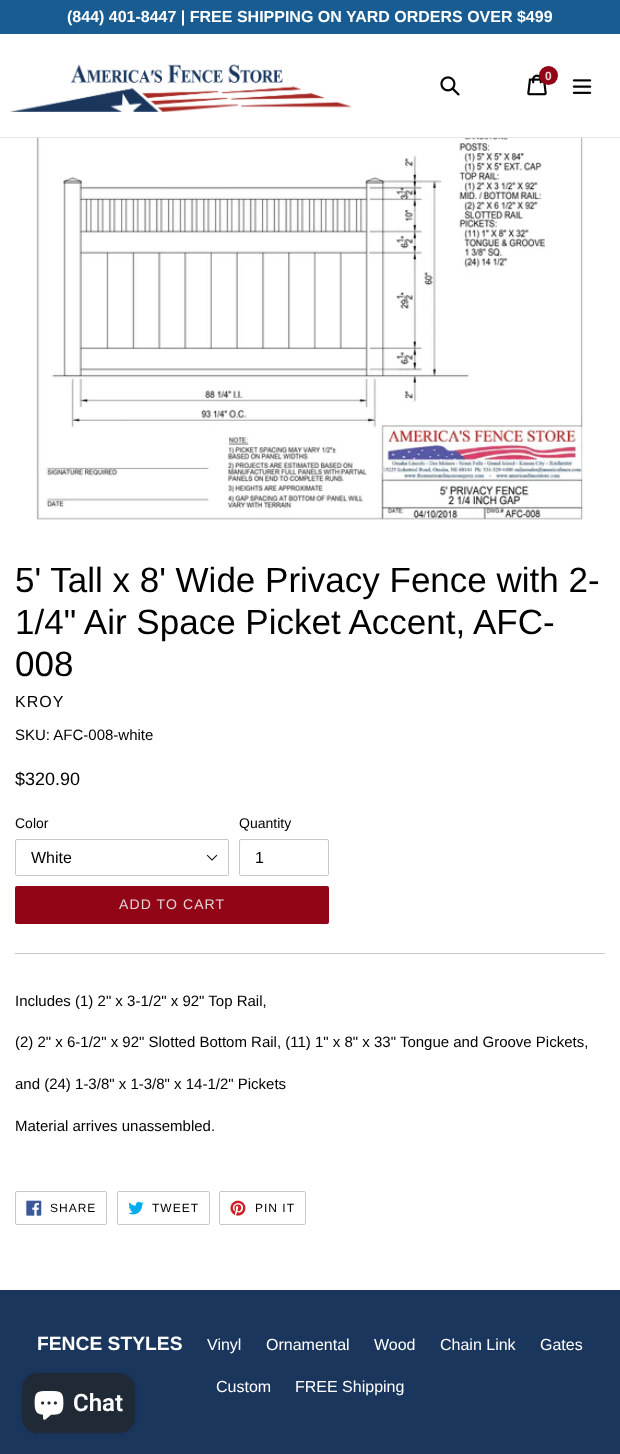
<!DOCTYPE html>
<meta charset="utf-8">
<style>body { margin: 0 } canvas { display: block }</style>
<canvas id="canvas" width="620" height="1454"></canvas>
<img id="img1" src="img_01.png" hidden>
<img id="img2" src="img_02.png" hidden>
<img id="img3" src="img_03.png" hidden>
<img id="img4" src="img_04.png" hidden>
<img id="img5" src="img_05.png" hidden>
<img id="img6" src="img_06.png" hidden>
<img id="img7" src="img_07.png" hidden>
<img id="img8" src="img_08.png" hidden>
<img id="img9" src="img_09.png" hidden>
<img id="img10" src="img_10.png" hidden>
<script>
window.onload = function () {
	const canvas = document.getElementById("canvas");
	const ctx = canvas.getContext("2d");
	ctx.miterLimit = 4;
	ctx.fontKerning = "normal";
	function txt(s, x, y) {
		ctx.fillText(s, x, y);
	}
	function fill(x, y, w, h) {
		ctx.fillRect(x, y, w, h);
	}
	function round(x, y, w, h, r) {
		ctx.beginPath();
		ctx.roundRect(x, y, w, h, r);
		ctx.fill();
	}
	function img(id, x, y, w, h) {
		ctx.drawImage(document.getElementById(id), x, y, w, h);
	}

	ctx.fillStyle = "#FFFFFF";
	fill(0, 0, 620, 1454);
	ctx.fillStyle = "#195C92";
	fill(0, 0, 620, 34);
	ctx.fillStyle = "#E6E6E6";
	fill(0, 137, 620, 1);
	img("img1", 10, 64, 342, 48);
	img("img2", 440, 76, 20, 20);
	img("img3", 527, 74, 20, 22);
	ctx.fillStyle = "#910516";
	ctx.beginPath();
	ctx.arc(548.5, 75.5, 9.5, 0, Math.PI * 2);
	ctx.fill();
	img("img4", 572, 79, 20, 15);
	img("img5", 36, 138, 548, 382);
	img("img6", 206, 854, 12, 7);
	ctx.beginPath();
	ctx.roundRect(15.5, 839.5, 213, 36, 1.5);
	ctx.strokeStyle = "#C9C9C9";
	ctx.stroke();
	ctx.beginPath();
	ctx.roundRect(239.5, 839.5, 89, 36, 1.5);
	ctx.stroke();
	round(15, 886, 314, 38, 2);
	ctx.fillStyle = "#C9C9C9";
	fill(15, 953, 590, 1);
	ctx.beginPath();
	ctx.roundRect(15.5, 1191.5, 91, 33, 1.5);
	ctx.stroke();
	img("img7", 26, 1200, 16, 16);
	ctx.beginPath();
	ctx.roundRect(117.5, 1191.5, 92, 33, 1.5);
	ctx.stroke();
	img("img8", 128, 1201, 16, 14);
	ctx.beginPath();
	ctx.roundRect(219.5, 1191.5, 86, 33, 1.5);
	ctx.stroke();
	img("img9", 230, 1200, 16, 16);
	ctx.fillStyle = "#1B365D";
	fill(0, 1290, 620, 164);
	ctx.fillStyle = "rgba(0, 0, 0, 0.15)";
	ctx.filter = "blur(2.5px)";
	ctx.beginPath();
	ctx.roundRect(22, 1373, 113, 60, 16);
	ctx.fill();
	ctx.filter = "none";
	ctx.fillStyle = "#202A36";
	round(22, 1373, 113, 60, 16);
	img("img10", 34, 1391, 30, 29);
	ctx.font = "bold 16px Liberation Sans";
	ctx.fillStyle = "#FFFFFF";
	txt("(844) 401-8447 | FREE SHIPPING ON YARD ORDERS OVER $499", 67, 22);
	ctx.font = "bold 12px Liberation Sans";
	ctx.fillStyle = "#E6D4D4";
	txt("0", 545, 80);
	ctx.font = "35px Liberation Sans";
	ctx.fillStyle = "#000000";
	txt("5' Tall x 8' Wide Privacy Fence with 2-", 15, 592);
	txt("1/4\" Air Space Picket Accent, AFC-", 15, 634);
	txt("008", 15, 676);
	ctx.letterSpacing = "1px";
	ctx.font = "16px Liberation Sans";
	txt("KROY", 15, 707);
	ctx.letterSpacing = "0px";
	ctx.font = "15px Liberation Sans";
	txt("SKU: AFC-008-white", 15, 740);
	ctx.font = "18px Liberation Sans";
	txt("$320.90", 15, 785);
	ctx.font = "14px Liberation Sans";
	txt("Color", 15, 828);
	ctx.font = "16px Liberation Sans";
	txt("White", 31, 863);
	ctx.font = "14px Liberation Sans";
	txt("Quantity", 239, 828);
	ctx.font = "16px Liberation Sans";
	txt("1", 255, 863);
	ctx.letterSpacing = "1.1px";
	ctx.font = "14px Liberation Sans";
	ctx.fillStyle = "#E6D4D4";
	txt("ADD TO CART", 119, 909);
	ctx.letterSpacing = "0px";
	ctx.font = "15px Liberation Sans";
	ctx.fillStyle = "#000000";
	txt("Includes (1) 2\" x 3-1/2\" x 92\" Top Rail,", 15, 1006);
	txt("(2) 2\" x 6-1/2\" x 92\" Slotted Bottom Rail, (11) 1\" x 8\" x 33\" Tongue and Groove Pickets,", 15, 1047);
	txt("and (24) 1-3/8\" x 1-3/8\" x 14-1/2\" Pickets", 15, 1089);
	txt("Material arrives unassembled.", 15, 1131);
	ctx.letterSpacing = "1px";
	ctx.font = "12px Liberation Sans";
	txt("SHARE", 50, 1212);
	txt("TWEET", 152, 1212);
	txt("PIN IT", 255, 1212);
	ctx.letterSpacing = "0px";
	ctx.font = "bold 19.25px Liberation Sans";
	ctx.fillStyle = "#FFFFFF";
	txt("FENCE STYLES", 37, 1350);
	ctx.font = "16px Liberation Sans";
	txt("Vinyl", 207, 1350);
	txt("Ornamental", 266, 1350);
	txt("Wood", 374, 1350);
	txt("Chain Link", 440, 1350);
	txt("Gates", 540, 1350);
	txt("Custom", 216, 1392);
	txt("FREE Shipping", 295, 1392);
	ctx.font = "600 24px Roboto";
	txt("Chat", 73, 1411);
};
</script>
